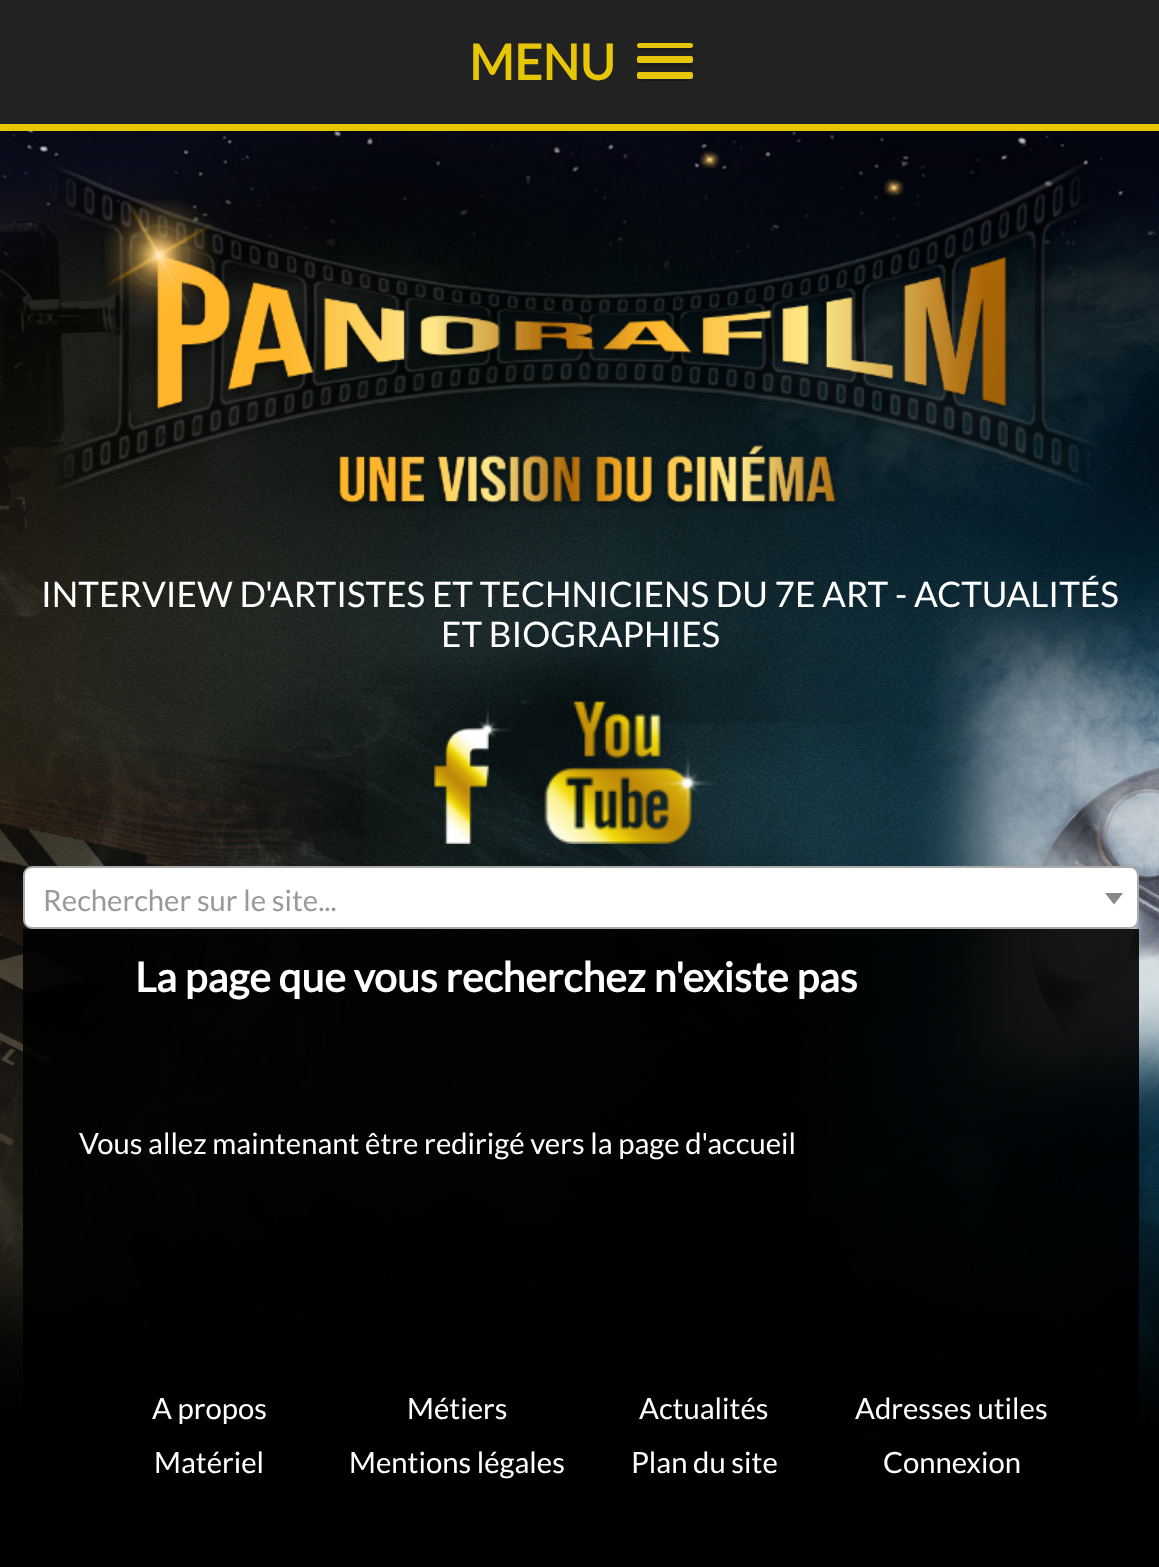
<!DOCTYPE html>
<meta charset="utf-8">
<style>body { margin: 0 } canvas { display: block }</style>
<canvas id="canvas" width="1159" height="1567"></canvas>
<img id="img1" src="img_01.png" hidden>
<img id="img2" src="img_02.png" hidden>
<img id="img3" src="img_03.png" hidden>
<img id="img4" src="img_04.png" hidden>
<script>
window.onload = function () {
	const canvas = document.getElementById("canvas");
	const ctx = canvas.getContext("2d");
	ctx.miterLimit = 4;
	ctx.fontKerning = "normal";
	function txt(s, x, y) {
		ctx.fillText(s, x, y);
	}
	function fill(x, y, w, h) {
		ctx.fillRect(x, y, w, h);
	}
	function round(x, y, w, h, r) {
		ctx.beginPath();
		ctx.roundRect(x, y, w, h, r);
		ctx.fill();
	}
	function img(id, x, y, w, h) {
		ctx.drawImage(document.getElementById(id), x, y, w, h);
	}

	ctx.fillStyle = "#FFFFFF";
	fill(0, 0, 1159, 1567);
	img("img1", 0, 131, 1159, 1436);
	ctx.fillStyle = "#222222";
	fill(0, 0, 1159, 124);
	ctx.fillStyle = "#E7C607";
	fill(0, 124, 1159, 7);
	ctx.fillStyle = "#1A1A1A";
	ctx.beginPath();
	ctx.moveTo(637, 46);
	ctx.bezierCurveTo(635, 51, 642, 50, 648, 50);
	ctx.lineTo(682, 50);
	ctx.bezierCurveTo(688, 50, 695, 51, 693, 46);
	ctx.bezierCurveTo(691, 49, 683, 47, 682, 47);
	ctx.bezierCurveTo(677, 47, 639, 48, 637, 46);
	ctx.closePath();
	ctx.fill();
	ctx.fillStyle = "#E7C607";
	round(637, 43, 56, 5, 2.5);
	ctx.fillStyle = "#1A1A1A";
	ctx.beginPath();
	ctx.moveTo(637, 62);
	ctx.bezierCurveTo(637, 68, 640, 66, 648, 66);
	ctx.lineTo(682, 66);
	ctx.bezierCurveTo(690, 66, 693, 68, 693, 61);
	ctx.lineTo(692, 63);
	ctx.lineTo(648, 63);
	ctx.bezierCurveTo(646, 63, 638, 65, 637, 62);
	ctx.closePath();
	ctx.fill();
	ctx.fillStyle = "#E7C607";
	round(637, 56, 56, 7, 2);
	ctx.fillStyle = "#1A1A1A";
	ctx.beginPath();
	ctx.moveTo(637, 78);
	ctx.bezierCurveTo(637, 83, 642, 81, 648, 81);
	ctx.lineTo(682, 81);
	ctx.bezierCurveTo(690, 81, 693, 83, 693, 76);
	ctx.bezierCurveTo(693, 78, 692, 79, 691, 79);
	ctx.lineTo(639, 79);
	ctx.bezierCurveTo(638, 79, 637, 78, 637, 78);
	ctx.closePath();
	ctx.fill();
	ctx.fillStyle = "#E7C607";
	round(637, 72, 56, 7, 2);
	img("img2", 53, 150, 1041, 359);
	img("img3", 434, 707, 78, 137);
	img("img4", 522, 700, 196, 144);
	ctx.fillStyle = "#FFFFFF";
	ctx.beginPath();
	ctx.roundRect(24, 867, 1114, 61, 8);
	ctx.fill();
	ctx.strokeStyle = "#AAAAAA";
	ctx.lineWidth = 2;
	ctx.stroke();
	ctx.fillStyle = "#888888";
	ctx.beginPath();
	ctx.moveTo(1105, 893);
	ctx.lineTo(1123, 893);
	ctx.lineTo(1114, 904.5);
	ctx.closePath();
	ctx.fill();
	ctx.fillStyle = "rgba(0, 0, 0, 0.9)";
	fill(23, 929, 1116, 408);
	fill(23, 1337, 1116, 95);
	ctx.font = "bold 49px Lato";
	ctx.fillStyle = "#E7C607";
	txt("MENU", 469, 80);
	ctx.font = "35.1px Lato";
	ctx.fillStyle = "#FFFFFF";
	txt("INTERVIEW D'ARTISTES ET TECHNICIENS DU 7E ART - ACTUALITÉS", 41, 607);
	txt("ET BIOGRAPHIES", 441, 647);
	ctx.font = "29.25px Lato";
	ctx.fillStyle = "#999999";
	txt("Rechercher sur le site...", 43, 911);
	ctx.font = "bold 41px Lato";
	ctx.fillStyle = "#FFFFFF";
	txt("La page que vous recherchez n'existe pas", 135, 992);
	ctx.font = "29.25px Lato";
	txt("Vous allez maintenant être redirigé vers la page d'accueil", 79, 1154);
	txt("A propos", 152, 1419);
	txt("Métiers", 407, 1419);
	txt("Actualités", 639, 1419);
	txt("Adresses utiles", 855, 1419);
	txt("Matériel", 154, 1473);
	txt("Mentions légales", 349, 1473);
	txt("Plan du site", 631, 1473);
	txt("Connexion", 883, 1473);
};
</script>
